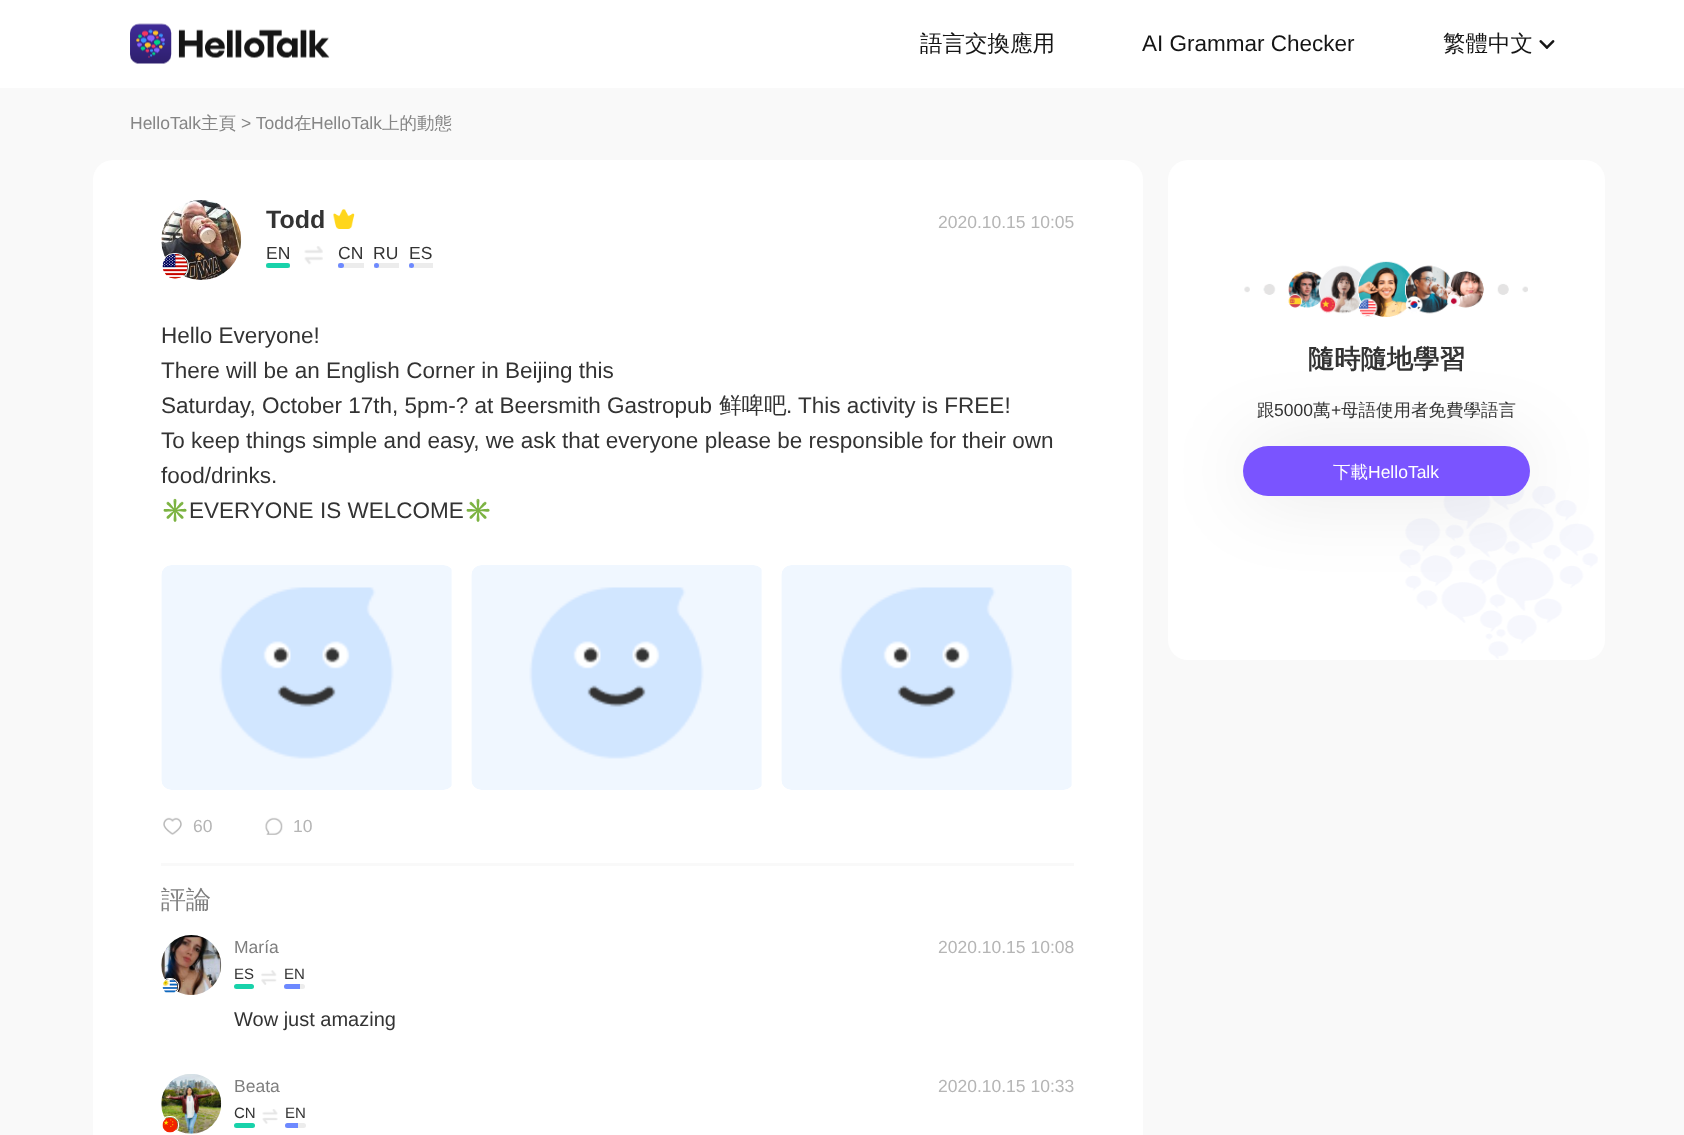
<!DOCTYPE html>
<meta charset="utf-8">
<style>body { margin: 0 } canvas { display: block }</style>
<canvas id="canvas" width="1684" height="1135"></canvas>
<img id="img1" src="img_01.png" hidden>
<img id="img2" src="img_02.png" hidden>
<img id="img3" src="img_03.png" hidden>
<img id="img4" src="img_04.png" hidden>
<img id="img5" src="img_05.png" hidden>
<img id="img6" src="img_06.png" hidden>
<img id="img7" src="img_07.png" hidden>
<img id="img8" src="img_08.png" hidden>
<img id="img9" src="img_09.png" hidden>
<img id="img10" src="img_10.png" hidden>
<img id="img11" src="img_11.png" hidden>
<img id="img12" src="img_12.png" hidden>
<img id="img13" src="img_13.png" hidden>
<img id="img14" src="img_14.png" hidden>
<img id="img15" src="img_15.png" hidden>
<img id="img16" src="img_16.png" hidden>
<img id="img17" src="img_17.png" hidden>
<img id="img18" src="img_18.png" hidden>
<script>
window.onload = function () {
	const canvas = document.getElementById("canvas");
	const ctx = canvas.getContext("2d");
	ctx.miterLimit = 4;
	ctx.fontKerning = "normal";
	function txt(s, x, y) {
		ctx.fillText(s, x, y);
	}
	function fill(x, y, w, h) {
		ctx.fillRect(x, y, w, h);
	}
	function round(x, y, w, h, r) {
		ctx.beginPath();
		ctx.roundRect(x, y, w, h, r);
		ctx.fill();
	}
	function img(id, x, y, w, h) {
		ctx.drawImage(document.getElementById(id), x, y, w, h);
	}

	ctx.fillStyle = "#F9F9F9";
	fill(0, 0, 1684, 1135);
	ctx.fillStyle = "#FFFFFF";
	fill(0, 0, 1684, 88);
	img("img1", 130, 23, 200, 41);
	img("img2", 1539, 40, 16, 9);
	round(93, 160, 1050, 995, 20);
	img("img3", 161, 200, 81, 80);
	ctx.beginPath();
	ctx.roundRect(161.5, 253.5, 27, 26, 12.5);
	ctx.strokeStyle = "#FFFFFF";
	ctx.stroke();
	img("img4", 162, 253, 26, 26);
	img("img5", 333, 209, 22, 20);
	ctx.fillStyle = "#ECECEC";
	fill(266, 263, 24, 5);
	ctx.fillStyle = "#18D2AA";
	round(266, 263, 24, 5, 2.5);
	img("img6", 304, 246, 19, 19);
	ctx.fillStyle = "#ECECEC";
	fill(338, 263, 26, 5);
	ctx.fillStyle = "#6D89FF";
	round(338, 263, 6, 5, 2.5);
	ctx.fillStyle = "#ECECEC";
	fill(374, 263, 25, 5);
	ctx.fillStyle = "#6D89FF";
	ctx.beginPath();
	ctx.arc(376.5, 265.5, 2.5, 0, Math.PI * 2);
	ctx.fill();
	ctx.fillStyle = "#ECECEC";
	fill(409, 263, 24, 5);
	ctx.fillStyle = "#6D89FF";
	ctx.beginPath();
	ctx.arc(411.5, 265.5, 2.5, 0, Math.PI * 2);
	ctx.fill();
	ctx.fillStyle = "#F9F9F9";
	fill(161, 863, 913, 3);
	img("img7", 161, 565, 291, 225);
	img("img7", 471, 565, 291, 225);
	img("img8", 781, 565, 291, 225);
	img("img9", 163, 817, 19, 18);
	img("img10", 265, 817, 18, 18);
	img("img11", 161, 935, 61, 60);
	ctx.beginPath();
	ctx.roundRect(161.5, 978.5, 17, 16, 7.5);
	ctx.stroke();
	img("img12", 162, 979, 16, 14);
	ctx.fillStyle = "#18D2AA";
	round(234, 984, 20, 5, 2.5);
	img("img13", 261, 970, 16, 15);
	ctx.fillStyle = "#ECECEC";
	round(284, 984, 21, 5, 2.5);
	ctx.fillStyle = "#6D89FF";
	ctx.beginPath();
	ctx.roundRect(284, 984, 16, 5, [2.5, 0, 0, 2.5]);
	ctx.fill();
	img("img14", 161, 1074, 61, 60);
	ctx.beginPath();
	ctx.roundRect(161.5, 1116.5, 17, 17, 7.5);
	ctx.stroke();
	img("img15", 162, 1117, 16, 16);
	ctx.fillStyle = "#18D2AA";
	round(234, 1123, 21, 5, 2.5);
	img("img16", 262, 1109, 16, 15);
	ctx.fillStyle = "#ECECEC";
	round(285, 1123, 21, 5, 2.5);
	ctx.fillStyle = "#6D89FF";
	ctx.beginPath();
	ctx.roundRect(285, 1123, 13, 5, [2.5, 0, 0, 2.5]);
	ctx.fill();
	ctx.fillStyle = "#FFFFFF";
	round(1168, 160, 437, 500, 20);
	img("img17", 1399, 486, 199, 173);
	img("img18", 1244, 261, 284, 56);
	ctx.fillStyle = "rgba(0, 0, 0, 0.1)";
	ctx.filter = "blur(40px)";
	ctx.beginPath();
	ctx.roundRect(1243, 446, 287, 50, 25);
	ctx.fill();
	ctx.filter = "none";
	ctx.fillStyle = "#7A54FF";
	round(1243, 446, 287, 50, 25);
	ctx.font = "500 22.5px WenQuanYi Zen Hei";
	ctx.fillStyle = "#151515";
	txt("語言交換應用", 920, 51);
	ctx.font = "22.5px Liberation Sans";
	txt("AI Grammar Checker", 1142, 51);
	ctx.font = "500 22.5px WenQuanYi Zen Hei";
	txt("繁體中文", 1443, 51);
	ctx.font = "17.5px Liberation Sans";
	ctx.fillStyle = "#858585";
	txt("HelloTalk", 130, 129);
	ctx.font = "500 17.5px WenQuanYi Zen Hei";
	txt("主頁", 201, 129);
	ctx.font = "17.5px Liberation Sans";
	txt("> Todd", 241, 129);
	ctx.font = "500 17.5px WenQuanYi Zen Hei";
	txt("在", 294, 129);
	ctx.font = "17.5px Liberation Sans";
	txt("HelloTalk", 311, 129);
	ctx.font = "500 17.5px WenQuanYi Zen Hei";
	txt("上的動態", 382, 129);
	ctx.font = "bold 25px Liberation Sans";
	ctx.fillStyle = "#333333";
	txt("Todd", 266, 228);
	ctx.font = "17.5px Liberation Sans";
	txt("EN", 266, 259);
	txt("CN", 338, 259);
	txt("RU", 373, 259);
	txt("ES", 409, 259);
	ctx.fillStyle = "#B5B5B5";
	txt("2020.10.15 10:05", 938, 228);
	ctx.font = "22.5px Liberation Sans";
	ctx.fillStyle = "#333333";
	txt("Hello Everyone!", 161, 343);
	txt("There will be an English Corner in Beijing this", 161, 378);
	txt("Saturday, October 17th, 5pm-? at Beersmith Gastropub", 161, 413);
	ctx.font = "500 22.5px WenQuanYi Zen Hei";
	txt("鲜啤吧", 719, 413);
	ctx.font = "22.5px Liberation Sans";
	txt(". This activity is FREE!", 786, 413);
	txt("To keep things simple and easy, we ask that everyone please be responsible for their own", 161, 448);
	txt("food/drinks.", 161, 483);
	ctx.font = "22.5px Noto Color Emoji";
	txt("✳️", 161, 518);
	ctx.font = "22.5px Liberation Sans";
	txt("EVERYONE IS WELCOME", 189, 518);
	ctx.font = "22.5px Noto Color Emoji";
	txt("✳️", 464, 518);
	ctx.font = "17.5px Liberation Sans";
	ctx.fillStyle = "#B5B5B5";
	txt("60", 193, 832);
	txt("10", 293, 832);
	ctx.font = "500 25px WenQuanYi Zen Hei";
	ctx.fillStyle = "#7E7E7E";
	txt("評論", 161, 908);
	ctx.font = "17.5px Liberation Sans";
	txt("María", 234, 953);
	ctx.fillStyle = "#B5B5B5";
	txt("2020.10.15 10:08", 938, 953);
	ctx.font = "15px Liberation Sans";
	ctx.fillStyle = "#333333";
	txt("ES", 234, 979);
	txt("EN", 284, 979);
	ctx.font = "20px Liberation Sans";
	txt("Wow just amazing", 234, 1026);
	ctx.font = "17.5px Liberation Sans";
	ctx.fillStyle = "#7E7E7E";
	txt("Beata", 234, 1092);
	ctx.fillStyle = "#B5B5B5";
	txt("2020.10.15 10:33", 938, 1092);
	ctx.font = "15px Liberation Sans";
	ctx.fillStyle = "#333333";
	txt("CN", 234, 1118);
	txt("EN", 285, 1118);
	ctx.font = "bold 26.25px WenQuanYi Zen Hei";
	txt("隨時隨地學習", 1308, 368);
	ctx.font = "500 17.5px WenQuanYi Zen Hei";
	txt("跟", 1257, 416);
	ctx.font = "17.5px Liberation Sans";
	txt("5000", 1274, 416);
	ctx.font = "500 17.5px WenQuanYi Zen Hei";
	txt("萬", 1313, 416);
	ctx.font = "17.5px Liberation Sans";
	txt("+", 1331, 416);
	ctx.font = "500 17.5px WenQuanYi Zen Hei";
	txt("母語使用者免費學語言", 1341, 416);
	ctx.fillStyle = "#FFFFFF";
	txt("下載", 1333, 478);
	ctx.font = "17.5px Liberation Sans";
	txt("HelloTalk", 1368, 478);
};
</script>
